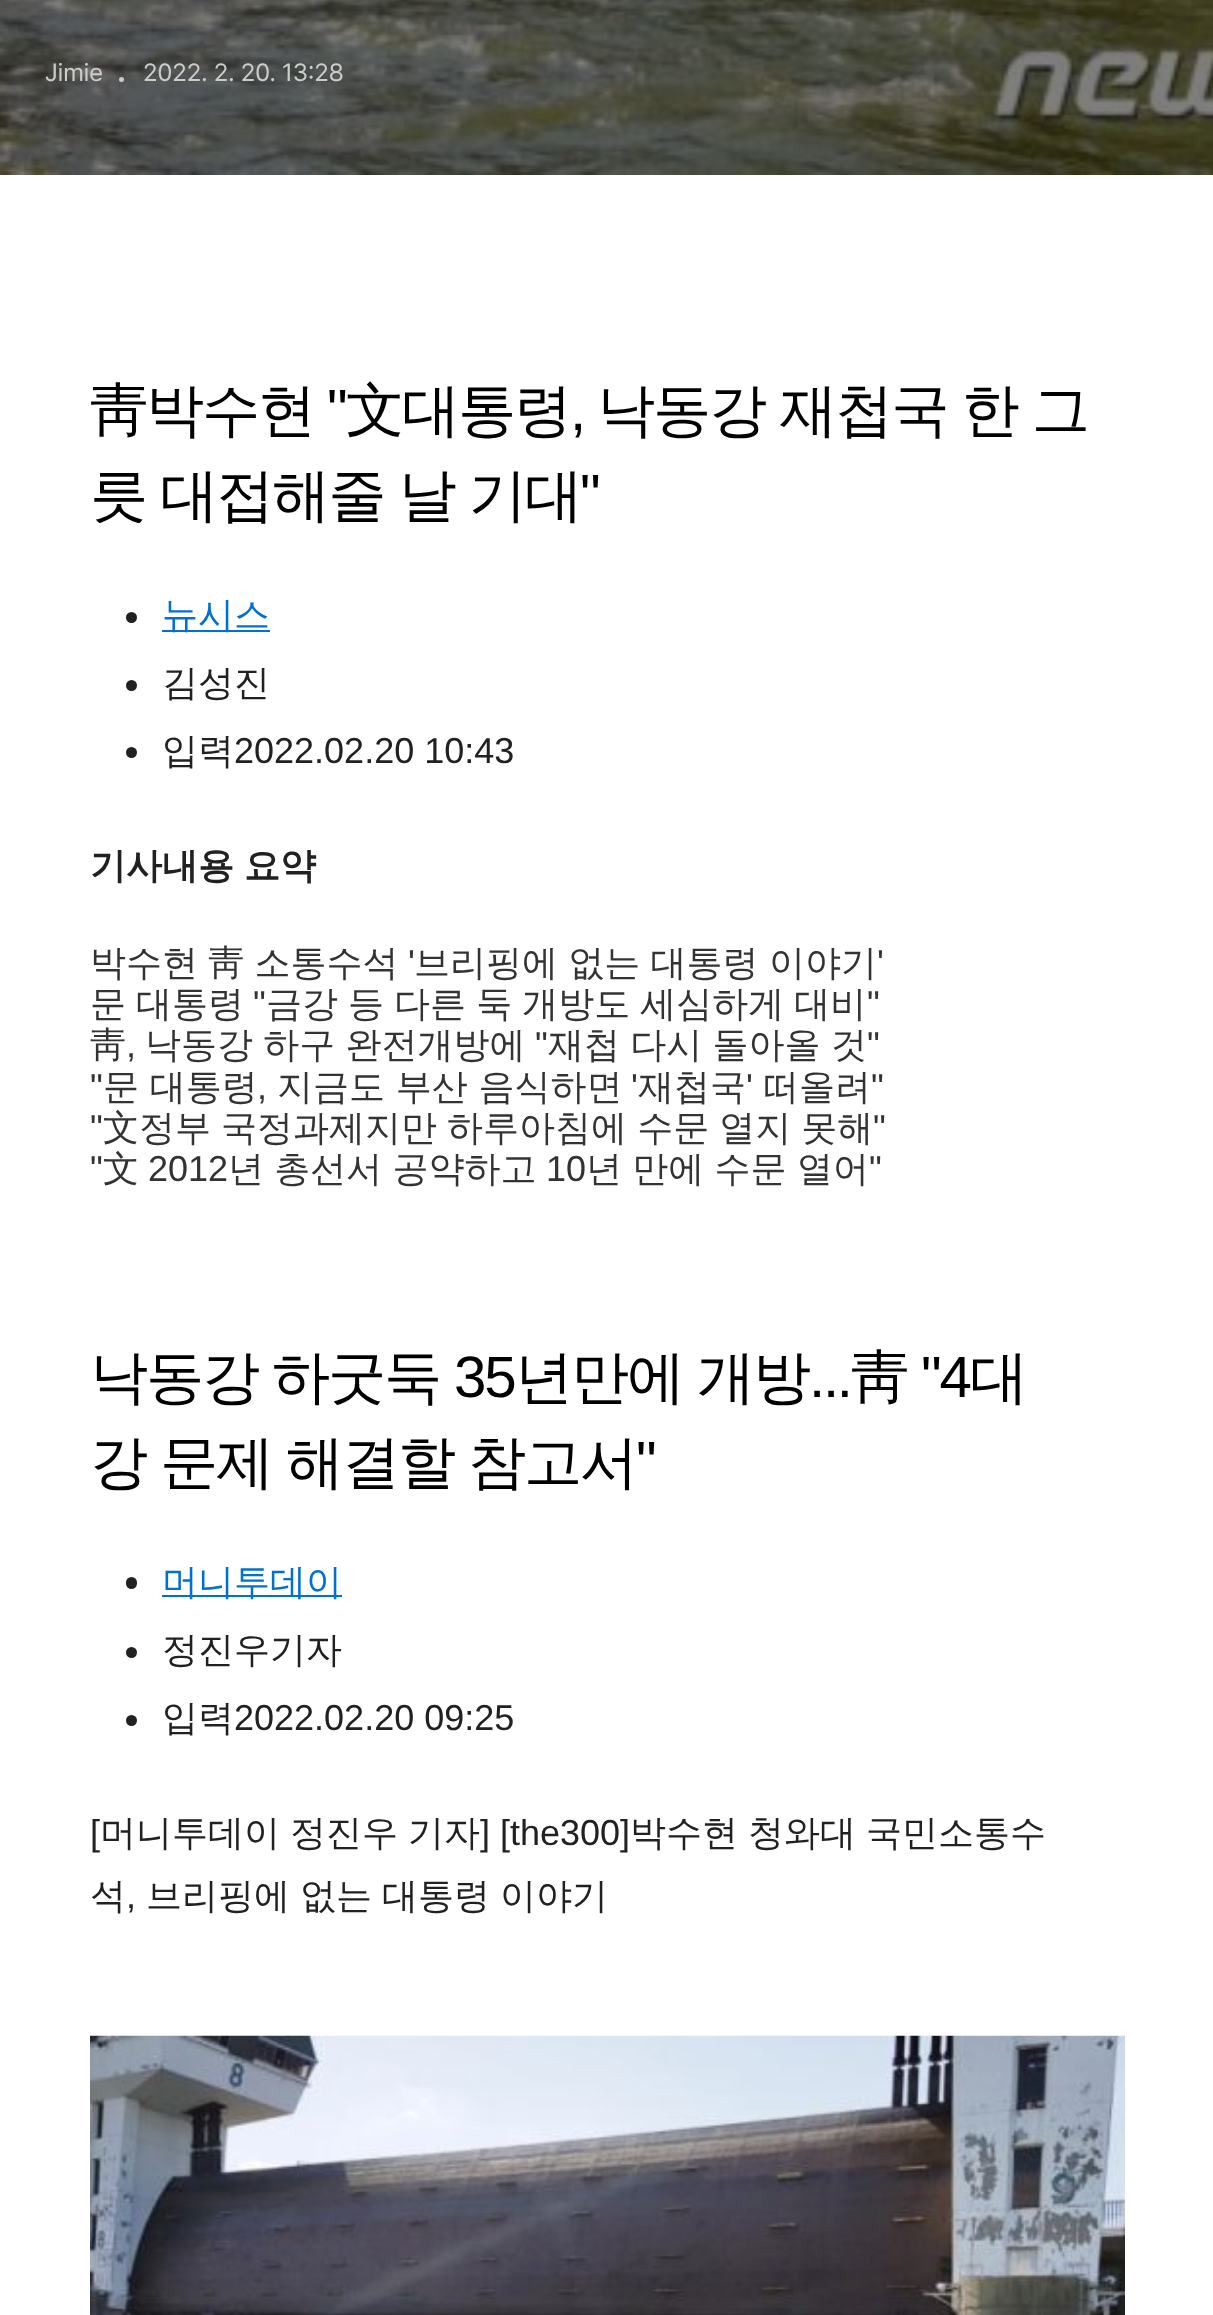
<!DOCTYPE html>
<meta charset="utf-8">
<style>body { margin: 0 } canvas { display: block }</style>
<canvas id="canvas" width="1213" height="2315"></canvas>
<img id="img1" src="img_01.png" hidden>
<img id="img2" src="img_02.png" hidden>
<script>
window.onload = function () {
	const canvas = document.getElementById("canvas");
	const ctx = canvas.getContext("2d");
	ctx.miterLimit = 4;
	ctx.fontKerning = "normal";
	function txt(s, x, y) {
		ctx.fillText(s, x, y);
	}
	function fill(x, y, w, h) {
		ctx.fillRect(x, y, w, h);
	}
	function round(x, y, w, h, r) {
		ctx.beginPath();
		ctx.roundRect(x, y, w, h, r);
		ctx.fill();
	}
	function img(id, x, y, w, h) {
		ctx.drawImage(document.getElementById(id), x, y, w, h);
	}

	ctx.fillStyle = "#FFFFFF";
	fill(0, 0, 1213, 2315);
	img("img1", 0, 0, 1213, 175);
	ctx.fillStyle = "rgba(255, 255, 255, 0.7)";
	ctx.beginPath();
	ctx.arc(121.5, 79.5, 2.5, 0, Math.PI * 2);
	ctx.fill();
	ctx.fillStyle = "#212121";
	ctx.beginPath();
	ctx.arc(131.5, 617.5, 5.5, 0, Math.PI * 2);
	ctx.fill();
	ctx.fillStyle = "#0070D1";
	fill(162, 630, 108, 2);
	ctx.fillStyle = "#212121";
	ctx.beginPath();
	ctx.arc(131.5, 685.5, 5.5, 0, Math.PI * 2);
	ctx.fill();
	ctx.beginPath();
	ctx.arc(131.5, 752.5, 5.5, 0, Math.PI * 2);
	ctx.fill();
	round(126, 1577, 11, 12, 5.5);
	ctx.fillStyle = "#0070D1";
	fill(162, 1595, 180, 2);
	ctx.fillStyle = "#212121";
	ctx.beginPath();
	ctx.arc(131.5, 1652.5, 5.5, 0, Math.PI * 2);
	ctx.fill();
	ctx.beginPath();
	ctx.arc(131.5, 1720.5, 5.5, 0, Math.PI * 2);
	ctx.fill();
	img("img2", 90, 2035, 1035, 280);
	ctx.font = "24.75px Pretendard";
	ctx.fillStyle = "#CCCCCB";
	txt("Jimie", 45, 81);
	txt("2022. 2. 20. 13:28", 143, 81);
	ctx.letterSpacing = "-2.25px";
	ctx.font = "500 58.25px WenQuanYi Zen Hei";
	ctx.fillStyle = "#000000";
	txt("靑박수현", 90, 430);
	ctx.font = "58.25px Liberation Sans";
	txt("\"", 327, 430);
	ctx.font = "500 58.25px WenQuanYi Zen Hei";
	txt("文대통령", 346, 430);
	ctx.wordSpacing = "-1px";
	txt("낙동강 재첩국 한 그", 597, 430);
	ctx.wordSpacing = "0px";
	ctx.font = "58.25px Liberation Sans";
	txt(",", 570, 430);
	ctx.wordSpacing = "-1px";
	ctx.font = "500 58.25px WenQuanYi Zen Hei";
	txt("릇 대접해줄 날 기대", 90, 515);
	ctx.wordSpacing = "0px";
	ctx.font = "58.25px Liberation Sans";
	txt("\"", 580, 515);
	ctx.letterSpacing = "0px";
	ctx.font = "500 36px WenQuanYi Zen Hei";
	ctx.fillStyle = "#0070D1";
	txt("뉴시스", 162, 627);
	ctx.fillStyle = "#212121";
	txt("김성진", 162, 695);
	txt("입력", 162, 763);
	ctx.font = "36px Liberation Sans";
	txt("2022.02.20 10:43", 234, 763);
	ctx.wordSpacing = "-0.75px";
	ctx.font = "bold 36px WenQuanYi Zen Hei";
	txt("기사내용 요약", 90, 878);
	ctx.wordSpacing = "-0.5px";
	ctx.font = "500 36px WenQuanYi Zen Hei";
	ctx.fillStyle = "#333333";
	txt("박수현 靑 소통수석", 90, 975);
	ctx.wordSpacing = "0px";
	ctx.font = "36px Liberation Sans";
	txt("'", 408, 975);
	ctx.wordSpacing = "-0.5px";
	ctx.font = "500 36px WenQuanYi Zen Hei";
	txt("브리핑에 없는 대통령 이야기", 414, 975);
	ctx.wordSpacing = "0px";
	ctx.font = "36px Liberation Sans";
	txt("'", 877, 975);
	ctx.wordSpacing = "-0.75px";
	ctx.font = "500 36px WenQuanYi Zen Hei";
	txt("문 대통령", 90, 1016);
	ctx.wordSpacing = "0px";
	ctx.font = "36px Liberation Sans";
	txt("\"", 253, 1016);
	ctx.wordSpacing = "-0.75px";
	ctx.font = "500 36px WenQuanYi Zen Hei";
	txt("금강 등 다른 둑 개방도 세심하게 대비", 266, 1016);
	ctx.wordSpacing = "0px";
	ctx.font = "36px Liberation Sans";
	txt("\"", 867, 1016);
	ctx.font = "500 36px WenQuanYi Zen Hei";
	txt("靑", 90, 1057);
	ctx.wordSpacing = "-0.5px";
	txt("낙동강 하구 완전개방에", 145, 1057);
	ctx.wordSpacing = "0px";
	ctx.font = "36px Liberation Sans";
	txt("\"", 535, 1057);
	ctx.wordSpacing = "-0.5px";
	ctx.font = "500 36px WenQuanYi Zen Hei";
	txt("재첩 다시 돌아올 것", 548, 1057);
	ctx.wordSpacing = "0px";
	ctx.font = "36px Liberation Sans";
	txt("\"", 867, 1057);
	txt(",", 126, 1057);
	txt("\"", 90, 1099);
	ctx.font = "500 36px WenQuanYi Zen Hei";
	txt("문 대통령", 103, 1099);
	txt("지금도 부산 음식하면", 277, 1099);
	ctx.font = "36px Liberation Sans";
	txt("'", 631, 1099);
	ctx.font = "500 36px WenQuanYi Zen Hei";
	txt("재첩국", 638, 1099);
	ctx.font = "36px Liberation Sans";
	txt("'", 746, 1099);
	ctx.font = "500 36px WenQuanYi Zen Hei";
	txt("떠올려", 763, 1099);
	ctx.font = "36px Liberation Sans";
	txt("\"", 871, 1099);
	txt(",", 257, 1099);
	txt("\"", 90, 1140);
	ctx.wordSpacing = "-0.75px";
	ctx.font = "500 36px WenQuanYi Zen Hei";
	txt("文정부 국정과제지만 하루아침에 수문 열지 못해", 103, 1140);
	ctx.wordSpacing = "0px";
	ctx.font = "36px Liberation Sans";
	txt("\"", 873, 1140);
	txt("\"", 90, 1181);
	ctx.font = "500 36px WenQuanYi Zen Hei";
	txt("文", 103, 1181);
	ctx.font = "36px Liberation Sans";
	txt("2012", 148, 1181);
	ctx.wordSpacing = "-0.5px";
	ctx.font = "500 36px WenQuanYi Zen Hei";
	txt("년 총선서 공약하고", 228, 1181);
	ctx.wordSpacing = "0px";
	ctx.font = "36px Liberation Sans";
	txt("10", 546, 1181);
	ctx.wordSpacing = "-0.5px";
	ctx.font = "500 36px WenQuanYi Zen Hei";
	txt("년 만에 수문 열어", 586, 1181);
	ctx.wordSpacing = "0px";
	ctx.font = "36px Liberation Sans";
	txt("\"", 869, 1181);
	ctx.letterSpacing = "-2.25px";
	ctx.font = "500 58.25px WenQuanYi Zen Hei";
	ctx.fillStyle = "#000000";
	txt("낙동강", 90, 1397);
	txt("하굿둑", 272, 1397);
	ctx.font = "58.25px Liberation Sans";
	txt("35", 454, 1397);
	ctx.font = "500 58.25px WenQuanYi Zen Hei";
	txt("년만에", 515, 1397);
	txt("개방", 697, 1397);
	ctx.font = "58.25px Liberation Sans";
	txt("...", 809, 1397);
	ctx.font = "500 58.25px WenQuanYi Zen Hei";
	txt("靑", 851, 1397);
	ctx.font = "58.25px Liberation Sans";
	txt("\"4", 921, 1397);
	ctx.font = "500 58.25px WenQuanYi Zen Hei";
	txt("대", 970, 1397);
	txt("강", 90, 1482);
	txt("문제", 160, 1482);
	txt("해결할", 286, 1482);
	txt("참고서", 468, 1482);
	ctx.font = "58.25px Liberation Sans";
	txt("\"", 636, 1482);
	ctx.letterSpacing = "0px";
	ctx.font = "500 36px WenQuanYi Zen Hei";
	ctx.fillStyle = "#0070D1";
	txt("머니투데이", 162, 1594);
	ctx.fillStyle = "#212121";
	txt("정진우기자", 162, 1662);
	txt("입력", 162, 1730);
	ctx.font = "36px Liberation Sans";
	txt("2022.02.20 09:25", 234, 1730);
	txt("[", 90, 1845);
	ctx.font = "500 36px WenQuanYi Zen Hei";
	txt("머니투데이", 100, 1845);
	txt("정진우", 290, 1845);
	txt("기자", 408, 1845);
	ctx.font = "36px Liberation Sans";
	txt("] [the300]", 480, 1845);
	ctx.font = "500 36px WenQuanYi Zen Hei";
	txt("박수현", 630, 1845);
	txt("청와대", 748, 1845);
	txt("국민소통수", 866, 1845);
	txt("석", 90, 1908);
	ctx.font = "36px Liberation Sans";
	txt(",", 126, 1908);
	ctx.font = "500 36px WenQuanYi Zen Hei";
	txt("브리핑에", 146, 1908);
	txt("없는", 300, 1908);
	txt("대통령", 382, 1908);
	txt("이야기", 500, 1908);
};
</script>
